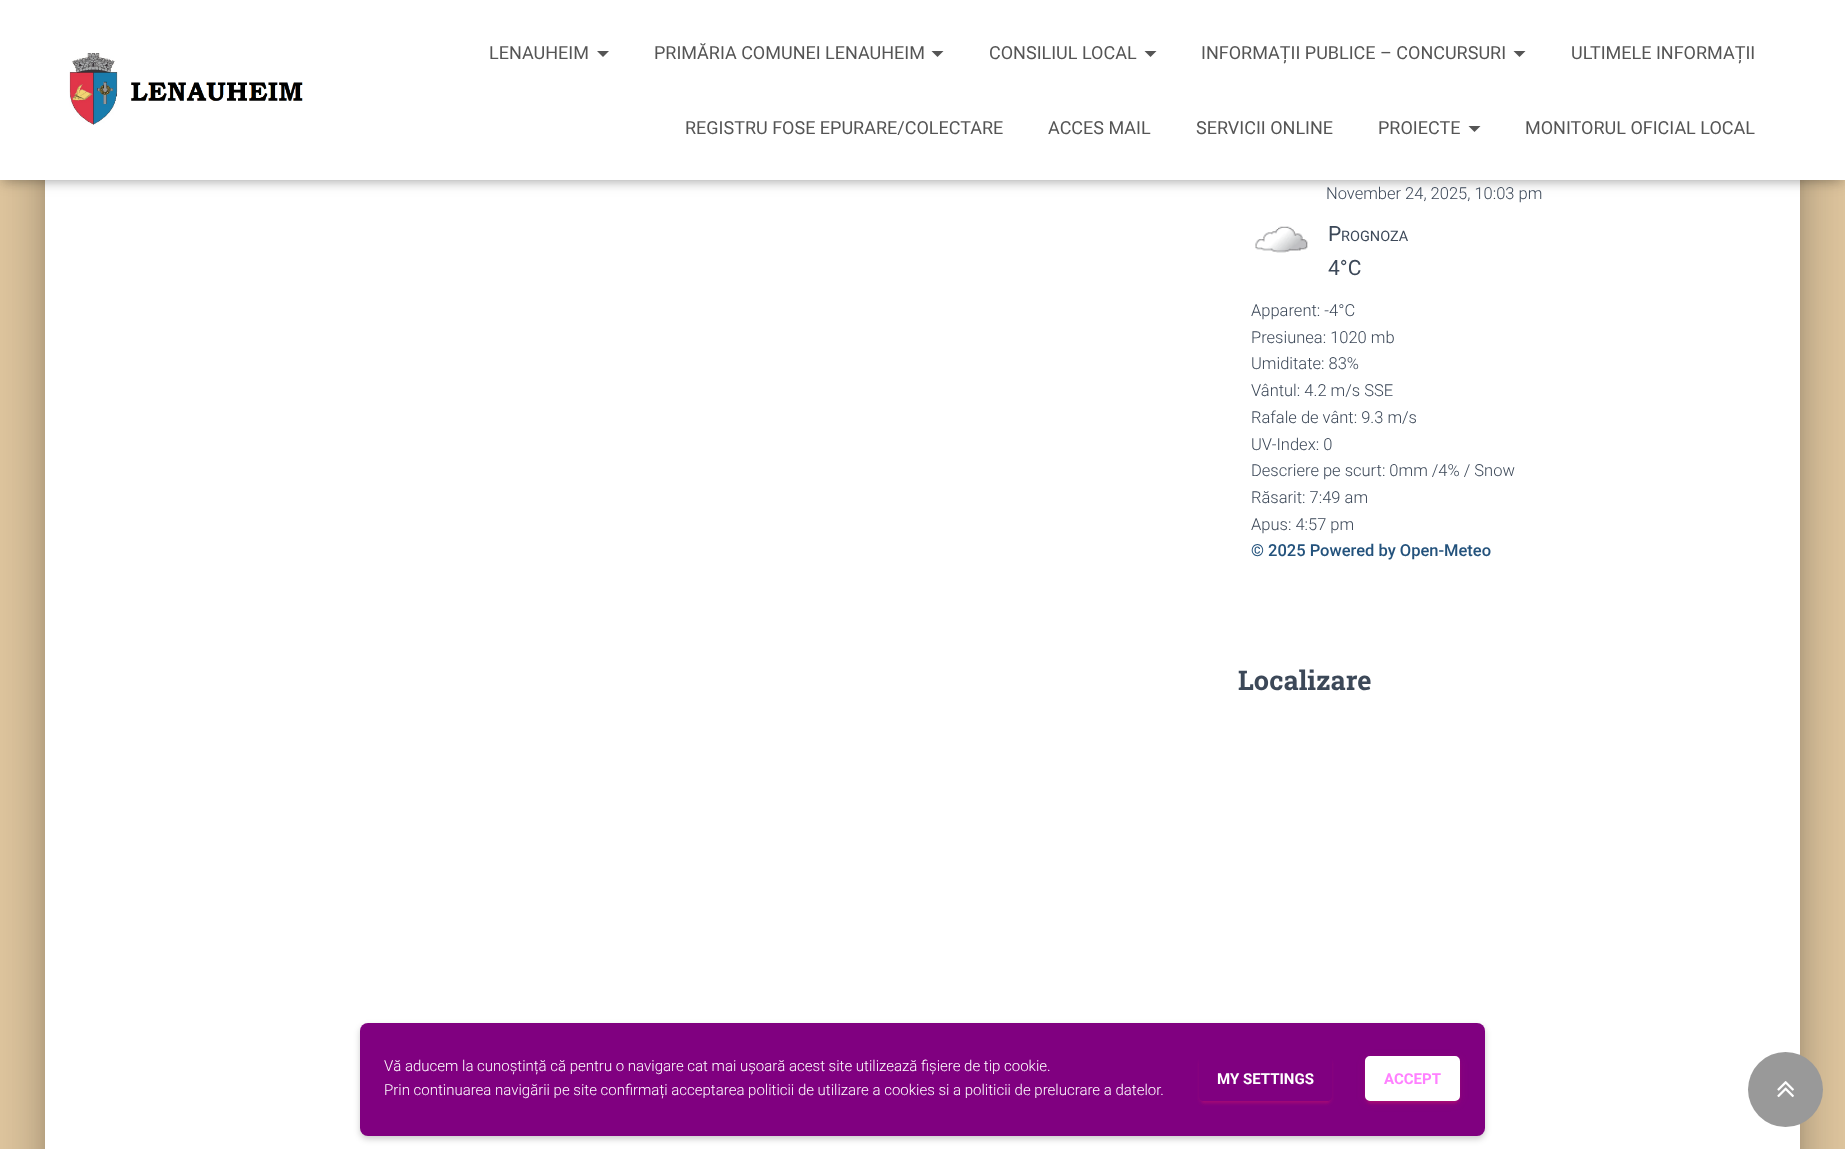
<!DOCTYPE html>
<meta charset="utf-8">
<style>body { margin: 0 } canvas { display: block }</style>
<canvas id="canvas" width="1845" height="1149"></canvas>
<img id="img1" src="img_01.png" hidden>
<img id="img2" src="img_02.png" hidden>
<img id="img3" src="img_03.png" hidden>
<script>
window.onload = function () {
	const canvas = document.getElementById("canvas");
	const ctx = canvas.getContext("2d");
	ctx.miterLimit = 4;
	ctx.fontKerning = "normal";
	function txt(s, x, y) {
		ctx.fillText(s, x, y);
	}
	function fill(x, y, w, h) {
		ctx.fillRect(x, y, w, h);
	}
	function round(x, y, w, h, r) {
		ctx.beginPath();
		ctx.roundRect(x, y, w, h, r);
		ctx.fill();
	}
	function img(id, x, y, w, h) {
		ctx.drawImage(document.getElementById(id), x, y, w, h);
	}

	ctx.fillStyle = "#DDC49D";
	fill(0, 0, 1845, 1149);
	ctx.fillStyle = "rgba(0, 0, 0, 0.2)";
	ctx.filter = "blur(7.5px)";
	ctx.beginPath();
	ctx.roundRect(53, -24, 1740, 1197, 1.5);
	ctx.fill();
	ctx.filter = "none";
	ctx.fillStyle = "rgba(0, 0, 0, 0.12)";
	ctx.filter = "blur(22.5px)";
	ctx.beginPath();
	ctx.roundRect(38, -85, 1770, 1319, 17);
	ctx.fill();
	ctx.filter = "none";
	ctx.fillStyle = "rgba(0, 0, 0, 0.14)";
	ctx.filter = "blur(18px)";
	ctx.beginPath();
	ctx.roundRect(42, -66, 1761, 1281, 12);
	ctx.fill();
	ctx.filter = "none";
	ctx.fillStyle = "#FFFFFF";
	fill(45, 180, 1755, 969);
	ctx.fillStyle = "rgba(0, 0, 0, 0.1)";
	ctx.filter = "blur(4px)";
	ctx.beginPath();
	ctx.rect(3, 9, 1839, 174);
	ctx.fill();
	ctx.filter = "none";
	ctx.fillStyle = "rgba(0, 0, 0, 0.12)";
	ctx.filter = "blur(7.5px)";
	ctx.beginPath();
	ctx.rect(0, 2, 1845, 180);
	ctx.fill();
	ctx.filter = "none";
	ctx.fillStyle = "rgba(0, 0, 0, 0.42)";
	ctx.filter = "blur(7.5px)";
	ctx.beginPath();
	ctx.rect(9, 11, 1827, 162);
	ctx.fill();
	ctx.filter = "none";
	ctx.fillStyle = "#FFFFFF";
	fill(0, 0, 1845, 180);
	img("img1", 69, 53, 234, 72);
	ctx.fillStyle = "#555555";
	ctx.beginPath();
	ctx.moveTo(597, 51);
	ctx.lineTo(609, 51);
	ctx.lineTo(603, 57);
	ctx.closePath();
	ctx.fill();
	ctx.beginPath();
	ctx.moveTo(931.5, 51);
	ctx.lineTo(943.5, 51);
	ctx.lineTo(937.5, 57);
	ctx.closePath();
	ctx.fill();
	ctx.beginPath();
	ctx.moveTo(1144.5, 51);
	ctx.lineTo(1156.5, 51);
	ctx.lineTo(1150.5, 57);
	ctx.closePath();
	ctx.fill();
	ctx.beginPath();
	ctx.moveTo(1513.5, 51);
	ctx.lineTo(1525.5, 51);
	ctx.lineTo(1519.5, 57);
	ctx.closePath();
	ctx.fill();
	ctx.beginPath();
	ctx.moveTo(1468.5, 126);
	ctx.lineTo(1480.5, 126);
	ctx.lineTo(1474.5, 132);
	ctx.closePath();
	ctx.fill();
	img("img2", 1255, 226, 53, 27);
	ctx.fillStyle = "rgba(0, 0, 0, 0.2)";
	ctx.filter = "blur(3px)";
	ctx.beginPath();
	ctx.roundRect(360, 1026, 1125, 113, 8);
	ctx.fill();
	ctx.filter = "none";
	ctx.fillStyle = "#800080";
	round(360, 1023, 1125, 113, 8);
	ctx.save();
	ctx.beginPath();
	ctx.moveTo(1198, 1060);
	ctx.lineTo(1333, 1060);
	ctx.lineTo(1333, 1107);
	ctx.lineTo(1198, 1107);
	ctx.closePath();
	ctx.moveTo(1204, 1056);
	ctx.lineTo(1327, 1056);
	ctx.bezierCurveTo(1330, 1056, 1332, 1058, 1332, 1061);
	ctx.lineTo(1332, 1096);
	ctx.bezierCurveTo(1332, 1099, 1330, 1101, 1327, 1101);
	ctx.lineTo(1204, 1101);
	ctx.bezierCurveTo(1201, 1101, 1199, 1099, 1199, 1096);
	ctx.lineTo(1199, 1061);
	ctx.bezierCurveTo(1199, 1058, 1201, 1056, 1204, 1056);
	ctx.closePath();
	ctx.clip("evenodd");
	ctx.fillStyle = "rgba(233, 30, 99, 0.2)";
	ctx.filter = "blur(1px)";
	ctx.beginPath();
	ctx.roundRect(1202, 1064, 127, 39, 1.5);
	ctx.fill();
	ctx.filter = "none";
	ctx.restore();
	ctx.save();
	ctx.beginPath();
	ctx.moveTo(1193, 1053);
	ctx.lineTo(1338, 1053);
	ctx.lineTo(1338, 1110);
	ctx.lineTo(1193, 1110);
	ctx.closePath();
	ctx.moveTo(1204, 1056);
	ctx.lineTo(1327, 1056);
	ctx.bezierCurveTo(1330, 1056, 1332, 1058, 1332, 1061);
	ctx.lineTo(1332, 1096);
	ctx.bezierCurveTo(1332, 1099, 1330, 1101, 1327, 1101);
	ctx.lineTo(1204, 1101);
	ctx.bezierCurveTo(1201, 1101, 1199, 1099, 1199, 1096);
	ctx.lineTo(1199, 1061);
	ctx.bezierCurveTo(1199, 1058, 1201, 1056, 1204, 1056);
	ctx.closePath();
	ctx.clip("evenodd");
	ctx.fillStyle = "rgba(233, 30, 99, 0.14)";
	ctx.filter = "blur(1.5px)";
	ctx.beginPath();
	ctx.roundRect(1199, 1059, 133, 45, 5);
	ctx.fill();
	ctx.filter = "none";
	ctx.restore();
	ctx.fillStyle = "rgba(233, 30, 99, 0.12)";
	ctx.filter = "blur(4px)";
	ctx.beginPath();
	ctx.roundRect(1365, 1058, 95, 45, 5);
	ctx.fill();
	ctx.filter = "none";
	ctx.fillStyle = "rgba(233, 30, 99, 0.2)";
	ctx.filter = "blur(1px)";
	ctx.beginPath();
	ctx.roundRect(1368, 1064, 89, 39, 1.5);
	ctx.fill();
	ctx.filter = "none";
	ctx.fillStyle = "rgba(233, 30, 99, 0.14)";
	ctx.filter = "blur(1.5px)";
	ctx.beginPath();
	ctx.roundRect(1365, 1059, 95, 45, 5);
	ctx.fill();
	ctx.filter = "none";
	ctx.fillStyle = "#FFFFFF";
	ctx.beginPath();
	ctx.roundRect(1366, 1057, 93, 43, 4);
	ctx.fill();
	ctx.strokeStyle = "#FFFFFF";
	ctx.lineWidth = 2;
	ctx.stroke();
	ctx.fillStyle = "#999999";
	ctx.beginPath();
	ctx.arc(1785.5, 1089.5, 37.5, 0, Math.PI * 2);
	ctx.fill();
	img("img3", 1777, 1081, 17, 17);
	ctx.font = "18px Roboto";
	ctx.fillStyle = "#555555";
	txt("LENAUHEIM", 489, 59);
	txt("PRIMĂRIA COMUNEI LENAUHEIM", 654, 59);
	txt("CONSILIUL LOCAL", 989, 59);
	txt("INFORMAȚII PUBLICE – CONCURSURI", 1201, 59);
	txt("ULTIMELE INFORMAȚII", 1571, 59);
	txt("REGISTRU FOSE EPURARE/COLECTARE", 685, 134);
	txt("ACCES MAIL", 1048, 134);
	txt("SERVICII ONLINE", 1196, 134);
	txt("PROIECTE", 1378, 134);
	txt("MONITORUL OFICIAL LOCAL", 1525, 134);
	ctx.font = "300 16.5px Roboto";
	ctx.fillStyle = "#3C4858";
	txt("November 24, 2025, 10:03 pm", 1326, 199);
	ctx.font = "21px Roboto";
	txt("P", 1328, 241);
	ctx.font = "14.5px Roboto";
	txt("ROGNOZA", 1341, 241);
	ctx.font = "21px Roboto";
	txt("4°C", 1328, 275);
	ctx.font = "300 16.5px Roboto";
	txt("Apparent: -4°C", 1251, 316);
	txt("Presiunea: 1020 mb", 1251, 343);
	txt("Umiditate: 83%", 1251, 369);
	txt("Vântul: 4.2 m/s SSE", 1251, 396);
	txt("Rafale de vânt: 9.3 m/s", 1251, 423);
	txt("UV-Index: 0", 1251, 450);
	txt("Descriere pe scurt: 0mm /4% / Snow", 1251, 476);
	txt("Răsarit: 7:49 am", 1251, 503);
	txt("Apus: 4:57 pm", 1251, 530);
	ctx.font = "500 16.5px Roboto";
	ctx.fillStyle = "#23527C";
	txt("© 2025 Powered by Open-Meteo", 1251, 556);
	ctx.font = "bold 27px Roboto Slab";
	ctx.fillStyle = "#3C4858";
	txt("Localizare", 1238, 690);
	ctx.font = "300 15px Roboto";
	ctx.fillStyle = "#FFFFFF";
	txt("Vă aducem la cunoștință că pentru o navigare cat mai ușoară acest site utilizează fișiere de tip cookie.", 384, 1071);
	txt("Prin continuarea navigării pe site confirmați acceptarea politicii de utilizare a cookies si a politicii de prelucrare a datelor.", 384, 1095);
	ctx.font = "bold 15px Roboto";
	txt("MY SETTINGS", 1217, 1084);
	ctx.fillStyle = "#FF80FF";
	txt("ACCEPT", 1384, 1084);
};
</script>
